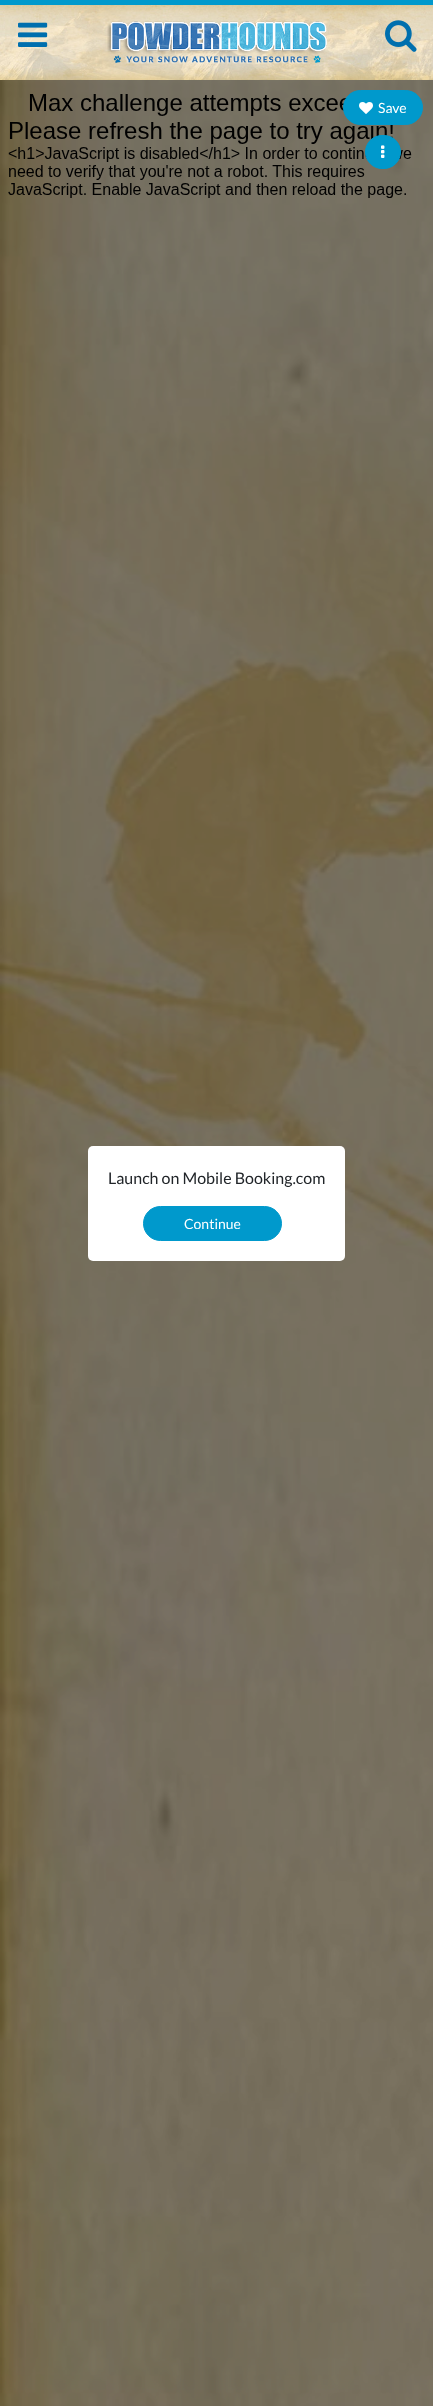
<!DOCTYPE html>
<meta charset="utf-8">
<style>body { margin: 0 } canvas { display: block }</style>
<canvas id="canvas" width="433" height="2406"></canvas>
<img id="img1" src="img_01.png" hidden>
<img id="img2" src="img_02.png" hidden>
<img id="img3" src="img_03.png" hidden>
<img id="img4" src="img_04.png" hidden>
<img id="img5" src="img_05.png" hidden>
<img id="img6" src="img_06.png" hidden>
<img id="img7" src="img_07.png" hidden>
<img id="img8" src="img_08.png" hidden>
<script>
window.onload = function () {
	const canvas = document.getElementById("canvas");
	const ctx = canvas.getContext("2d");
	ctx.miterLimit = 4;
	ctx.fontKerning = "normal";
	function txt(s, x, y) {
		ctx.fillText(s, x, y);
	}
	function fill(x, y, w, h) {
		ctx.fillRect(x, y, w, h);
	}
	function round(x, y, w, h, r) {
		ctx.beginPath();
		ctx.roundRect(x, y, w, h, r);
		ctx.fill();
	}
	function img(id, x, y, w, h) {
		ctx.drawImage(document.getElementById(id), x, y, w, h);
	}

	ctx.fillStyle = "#FFFFFF";
	fill(0, 0, 433, 2406);
	img("img1", 0, 5, 433, 75);
	ctx.fillStyle = "#0099CC";
	fill(0, 0, 433, 5);
	img("img2", 18, 22, 30, 25);
	img("img3", 107, 21, 220, 43);
	img("img4", 385, 20, 32, 32);
	img("img5", 0, 80, 433, 2326);
	img("img6", 8, 94, 404, 104);
	ctx.beginPath();
	ctx.roundRect(343.5, 90.5, 79, 34, 17);
	ctx.fill();
	ctx.strokeStyle = "#0099CC";
	ctx.stroke();
	img("img7", 359, 102, 14, 12);
	ctx.beginPath();
	ctx.roundRect(365.5, 135.5, 35, 33, 16.5);
	ctx.fill();
	ctx.stroke();
	img("img8", 381, 145, 4, 13);
	ctx.fillStyle = "#FFFFFF";
	round(88, 1146, 257, 115, 5);
	ctx.fillStyle = "#0099CC";
	ctx.beginPath();
	ctx.roundRect(143.5, 1206.5, 138, 34, 17);
	ctx.fill();
	ctx.stroke();
	ctx.font = "14px Lato";
	ctx.fillStyle = "#FFFFFF";
	txt("Save", 378, 113);
	ctx.font = "16px Lato";
	ctx.fillStyle = "#212529";
	txt("Launch on Mobile Booking.com", 108, 1184);
	ctx.font = "14px Lato";
	ctx.fillStyle = "#FFFFFF";
	txt("Continue", 184, 1229);
};
</script>
